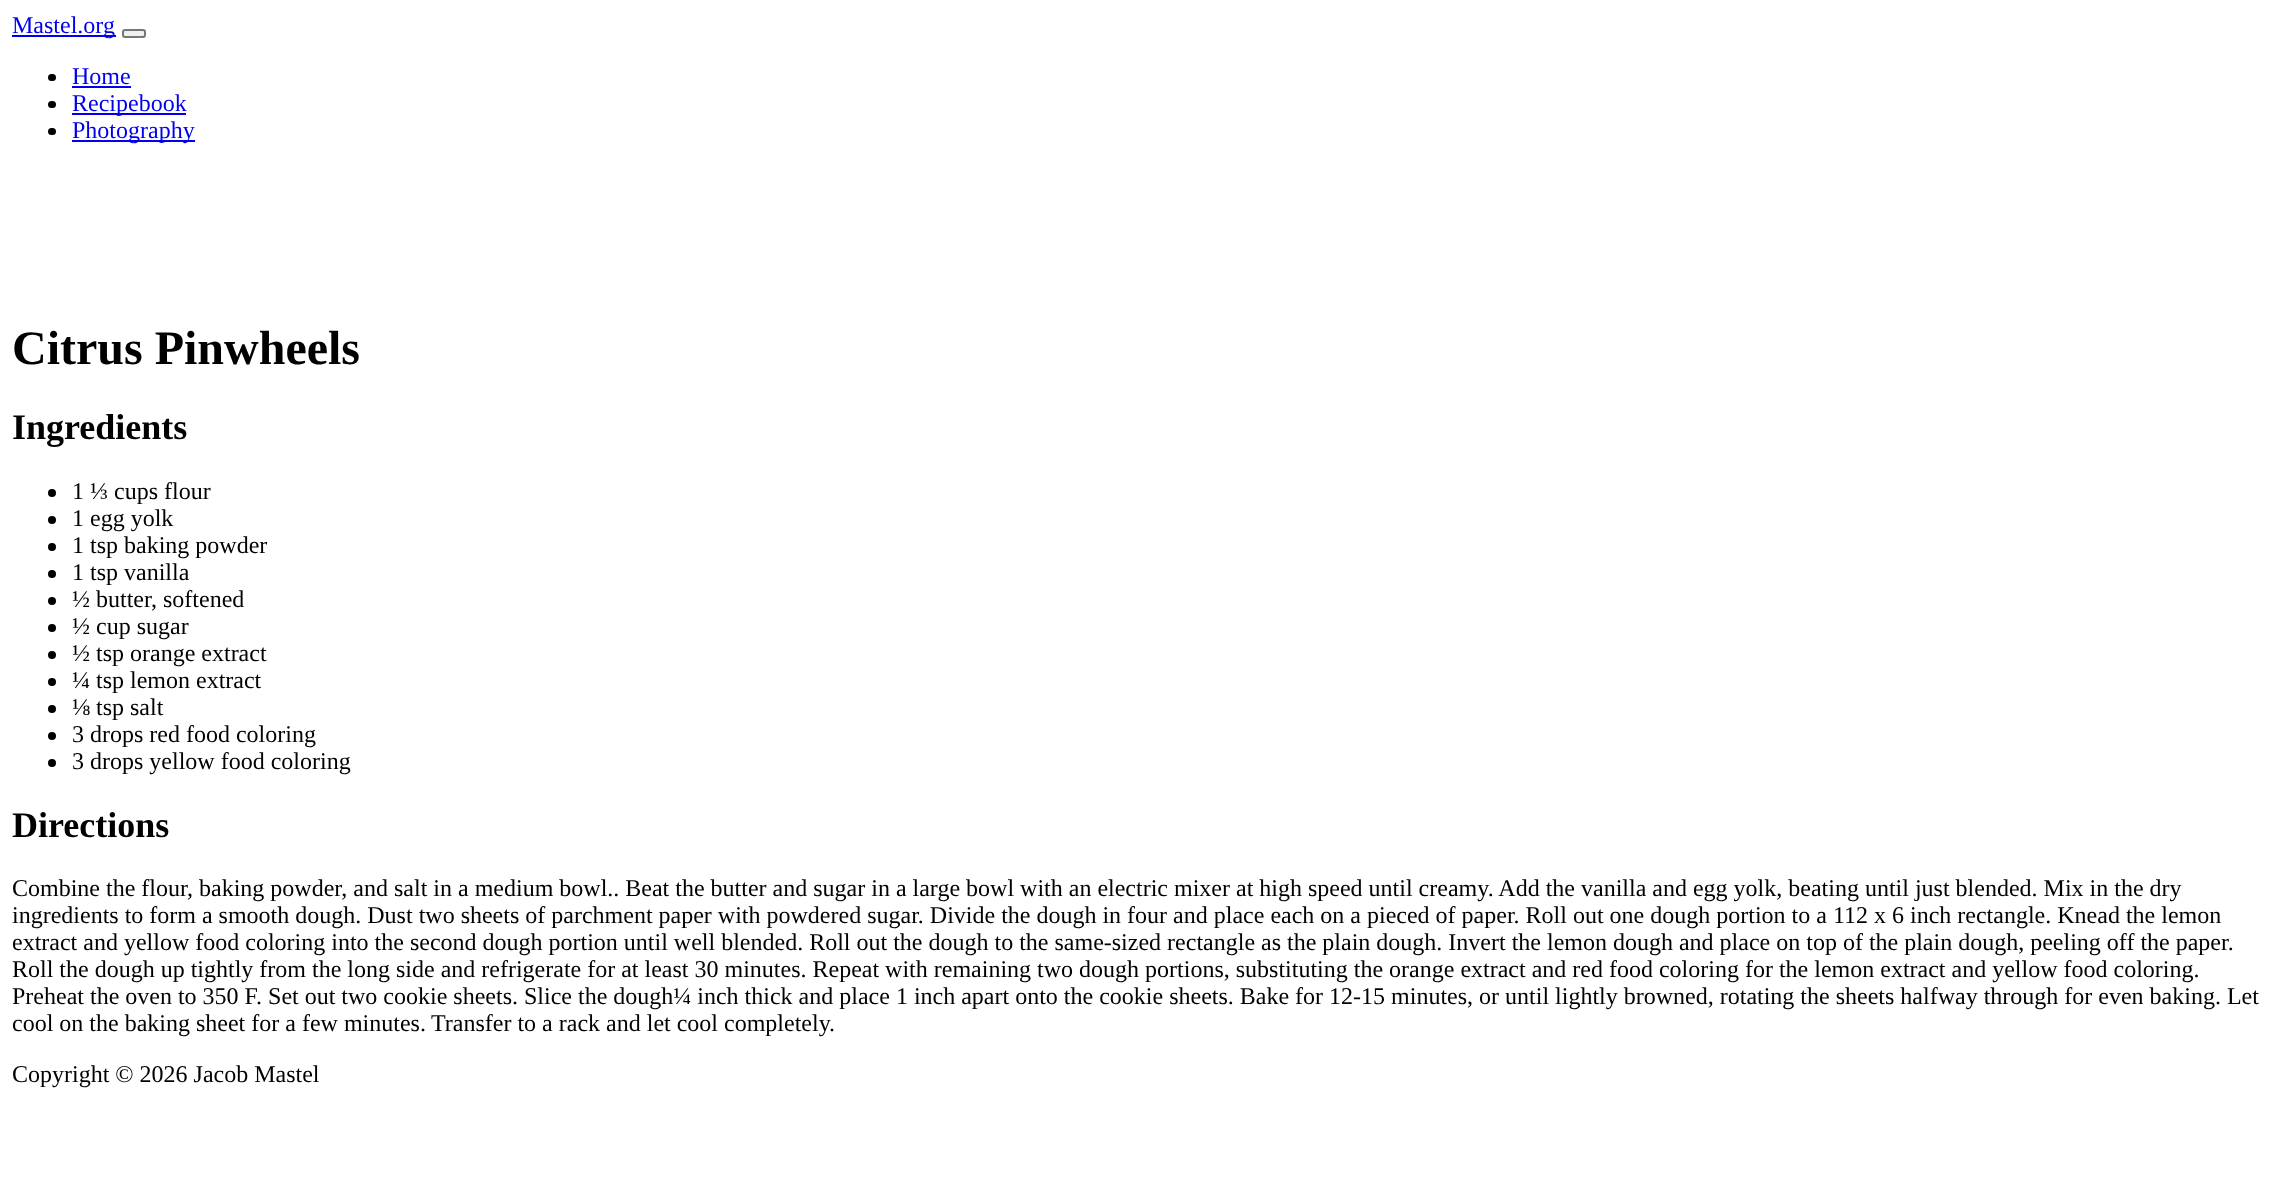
<!DOCTYPE html>
<meta charset="utf-8">
<style>body { margin: 0 } canvas { display: block }</style>
<canvas id="canvas" width="2273" height="1186"></canvas>
<script>
window.onload = function () {
	const canvas = document.getElementById("canvas");
	const ctx = canvas.getContext("2d");
	ctx.miterLimit = 4;
	ctx.fontKerning = "normal";
	function txt(s, x, y) {
		ctx.fillText(s, x, y);
	}
	function fill(x, y, w, h) {
		ctx.fillRect(x, y, w, h);
	}
	function round(x, y, w, h, r) {
		ctx.beginPath();
		ctx.roundRect(x, y, w, h, r);
		ctx.fill();
	}

	ctx.fillStyle = "#FFFFFF";
	fill(0, 0, 2273, 1186);
	ctx.fillStyle = "#0000EE";
	fill(12, 35, 104, 2);
	ctx.fillStyle = "#EFEFEF";
	ctx.beginPath();
	ctx.roundRect(123, 30, 22, 7, 2);
	ctx.fill();
	ctx.strokeStyle = "#767676";
	ctx.lineWidth = 2;
	ctx.stroke();
	ctx.fillStyle = "#000000";
	round(48, 74, 8, 7, 3.5);
	ctx.fillStyle = "#0000EE";
	fill(72, 86, 59, 2);
	ctx.fillStyle = "#000000";
	round(48, 101, 8, 7, 3.5);
	ctx.fillStyle = "#0000EE";
	fill(72, 113, 114, 2);
	ctx.fillStyle = "#000000";
	round(48, 128, 8, 7, 3.5);
	ctx.fillStyle = "#0000EE";
	fill(72, 140, 123, 2);
	ctx.fillStyle = "#000000";
	ctx.beginPath();
	ctx.arc(52, 493, 4, 0, Math.PI * 2);
	ctx.fill();
	ctx.beginPath();
	ctx.arc(52, 520, 4, 0, Math.PI * 2);
	ctx.fill();
	ctx.beginPath();
	ctx.arc(52, 547, 4, 0, Math.PI * 2);
	ctx.fill();
	ctx.beginPath();
	ctx.arc(52, 574, 4, 0, Math.PI * 2);
	ctx.fill();
	ctx.beginPath();
	ctx.arc(52, 601, 4, 0, Math.PI * 2);
	ctx.fill();
	ctx.beginPath();
	ctx.arc(52, 628, 4, 0, Math.PI * 2);
	ctx.fill();
	ctx.beginPath();
	ctx.arc(52, 655, 4, 0, Math.PI * 2);
	ctx.fill();
	ctx.beginPath();
	ctx.arc(52, 682, 4, 0, Math.PI * 2);
	ctx.fill();
	ctx.beginPath();
	ctx.arc(52, 709, 4, 0, Math.PI * 2);
	ctx.fill();
	ctx.beginPath();
	ctx.arc(52, 736, 4, 0, Math.PI * 2);
	ctx.fill();
	ctx.beginPath();
	ctx.arc(52, 763, 4, 0, Math.PI * 2);
	ctx.fill();
	ctx.font = "24px Liberation Serif";
	ctx.fillStyle = "#0000EE";
	txt("Mastel.org", 12, 33);
	txt("Home", 72, 84);
	txt("Recipebook", 72, 111);
	txt("Photography", 72, 138);
	ctx.font = "bold 48px Liberation Serif";
	ctx.fillStyle = "#000000";
	txt("Citrus Pinwheels", 12, 364);
	ctx.font = "bold 36px Liberation Serif";
	txt("Ingredients", 12, 439);
	ctx.font = "24px Liberation Serif";
	txt("1 ⅓ cups flour", 72, 499);
	txt("1 egg yolk", 72, 526);
	txt("1 tsp baking powder", 72, 553);
	txt("1 tsp vanilla", 72, 580);
	txt("½ butter, softened", 72, 607);
	txt("½ cup sugar", 72, 634);
	txt("½ tsp orange extract", 72, 661);
	txt("¼ tsp lemon extract", 72, 688);
	txt("⅛ tsp salt", 72, 715);
	txt("3 drops red food coloring", 72, 742);
	txt("3 drops yellow food coloring", 72, 769);
	ctx.font = "bold 36px Liberation Serif";
	txt("Directions", 12, 837);
	ctx.font = "24px Liberation Serif";
	txt("Combine the flour, baking powder, and salt in a medium bowl.. Beat the butter and sugar in a large bowl with an electric mixer at high speed until creamy. Add the vanilla and egg yolk, beating until just blended. Mix in the dry", 12, 896);
	txt("ingredients to form a smooth dough. Dust two sheets of parchment paper with powdered sugar. Divide the dough in four and place each on a pieced of paper. Roll out one dough portion to a 112 x 6 inch rectangle. Knead the lemon", 12, 923);
	txt("extract and yellow food coloring into the second dough portion until well blended. Roll out the dough to the same-sized rectangle as the plain dough. Invert the lemon dough and place on top of the plain dough, peeling off the paper.", 12, 950);
	txt("Roll the dough up tightly from the long side and refrigerate for at least 30 minutes. Repeat with remaining two dough portions, substituting the orange extract and red food coloring for the lemon extract and yellow food coloring.", 12, 977);
	txt("Preheat the oven to 350 F. Set out two cookie sheets. Slice the dough¼ inch thick and place 1 inch apart onto the cookie sheets. Bake for 12-15 minutes, or until lightly browned, rotating the sheets halfway through for even baking. Let", 12, 1004);
	txt("cool on the baking sheet for a few minutes.", 12, 1031);
	txt("Transfer to a rack and let cool completely.", 431, 1031);
	txt("Copyright © 2026 Jacob Mastel", 12, 1082);
};
</script>
